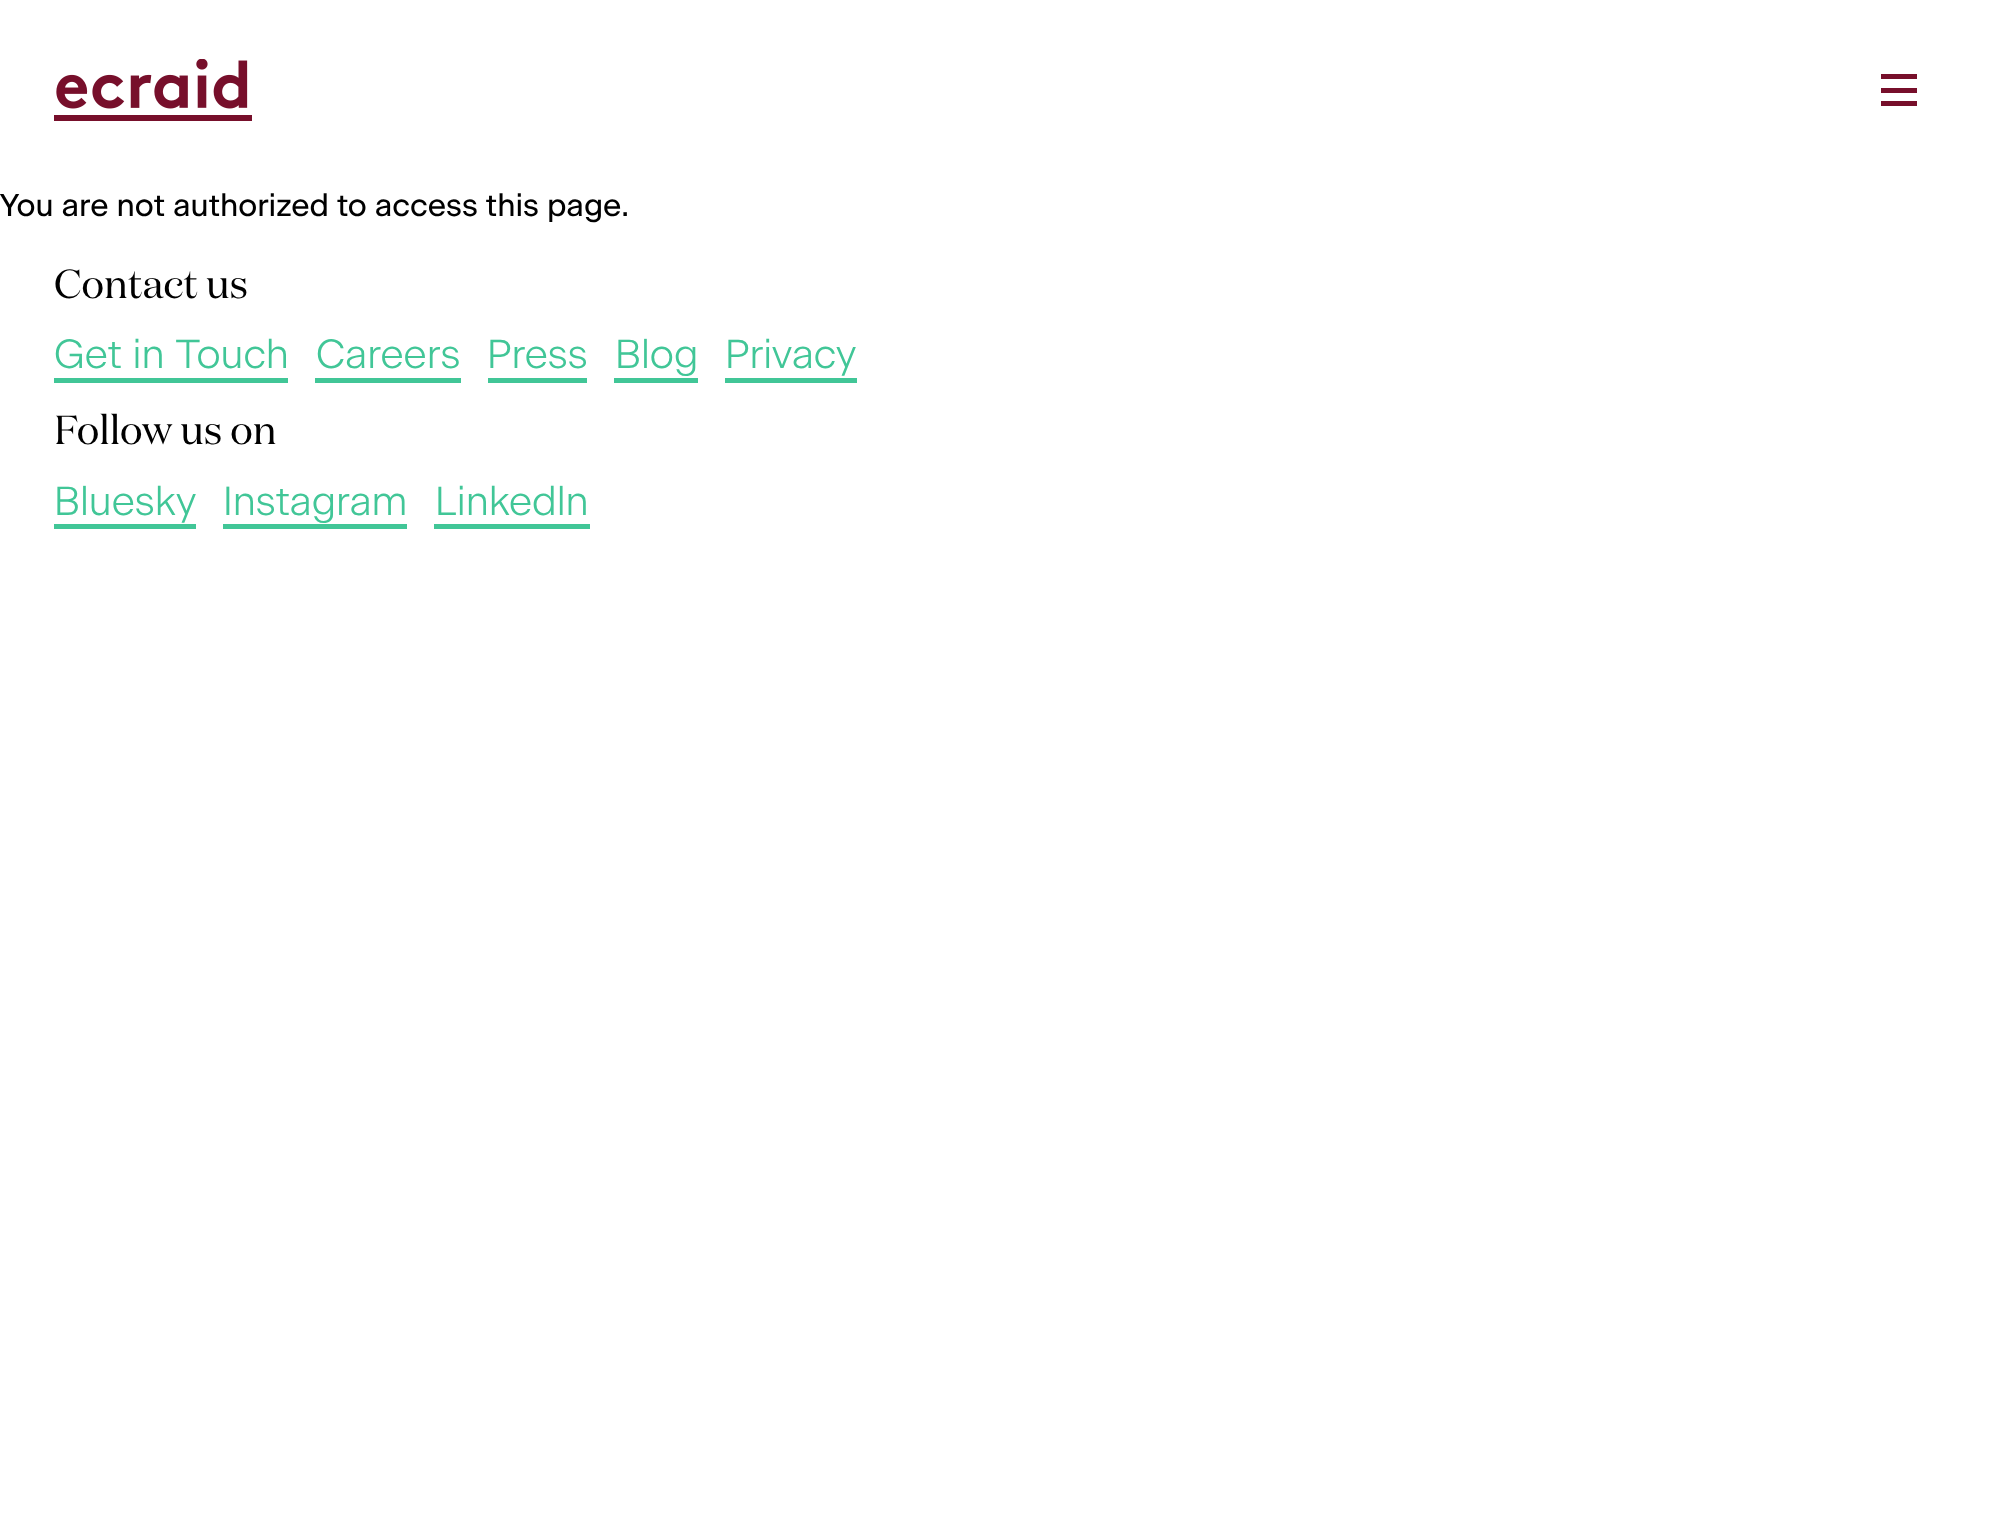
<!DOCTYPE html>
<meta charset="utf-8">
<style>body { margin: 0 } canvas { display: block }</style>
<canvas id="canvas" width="2006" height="1534"></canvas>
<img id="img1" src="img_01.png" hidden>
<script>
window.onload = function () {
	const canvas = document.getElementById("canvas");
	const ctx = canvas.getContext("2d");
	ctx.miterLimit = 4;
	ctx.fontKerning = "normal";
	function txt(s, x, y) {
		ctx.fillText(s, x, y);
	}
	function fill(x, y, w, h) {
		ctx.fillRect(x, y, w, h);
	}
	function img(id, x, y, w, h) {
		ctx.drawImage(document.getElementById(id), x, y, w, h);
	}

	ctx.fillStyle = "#FFFFFF";
	fill(0, 0, 2006, 1534);
	img("img1", 54, 59, 198, 62);
	ctx.fillStyle = "#770F2B";
	fill(1881, 74, 36, 5);
	fill(1881, 88, 36, 5);
	fill(1881, 101, 36, 5);
	ctx.fillStyle = "#41C697";
	fill(54, 378, 234, 5);
	fill(315, 378, 146, 5);
	fill(488, 378, 99, 5);
	fill(614, 378, 84, 5);
	fill(725, 378, 132, 5);
	fill(54, 524, 142, 5);
	fill(223, 524, 184, 5);
	fill(434, 524, 156, 5);
	ctx.font = "31.5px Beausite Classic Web";
	ctx.fillStyle = "#000000";
	txt("You are not authorized to access this page.", 0, 216);
	ctx.font = "40.5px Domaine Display";
	txt("Contact us", 54, 298);
	ctx.font = "300 40.5px Beausite Classic Web";
	ctx.fillStyle = "#41C697";
	txt("Get in Touch", 54, 368);
	txt("Careers", 316, 368);
	txt("Press", 487, 368);
	txt("Blog", 615, 368);
	txt("Privacy", 725, 368);
	ctx.font = "40.5px Domaine Display";
	ctx.fillStyle = "#000000";
	txt("Follow us on", 54, 444);
	ctx.font = "300 40.5px Beausite Classic Web";
	ctx.fillStyle = "#41C697";
	txt("Bluesky", 54, 515);
	txt("Instagram", 223, 515);
	txt("Linkedln", 435, 515);
};
</script>
